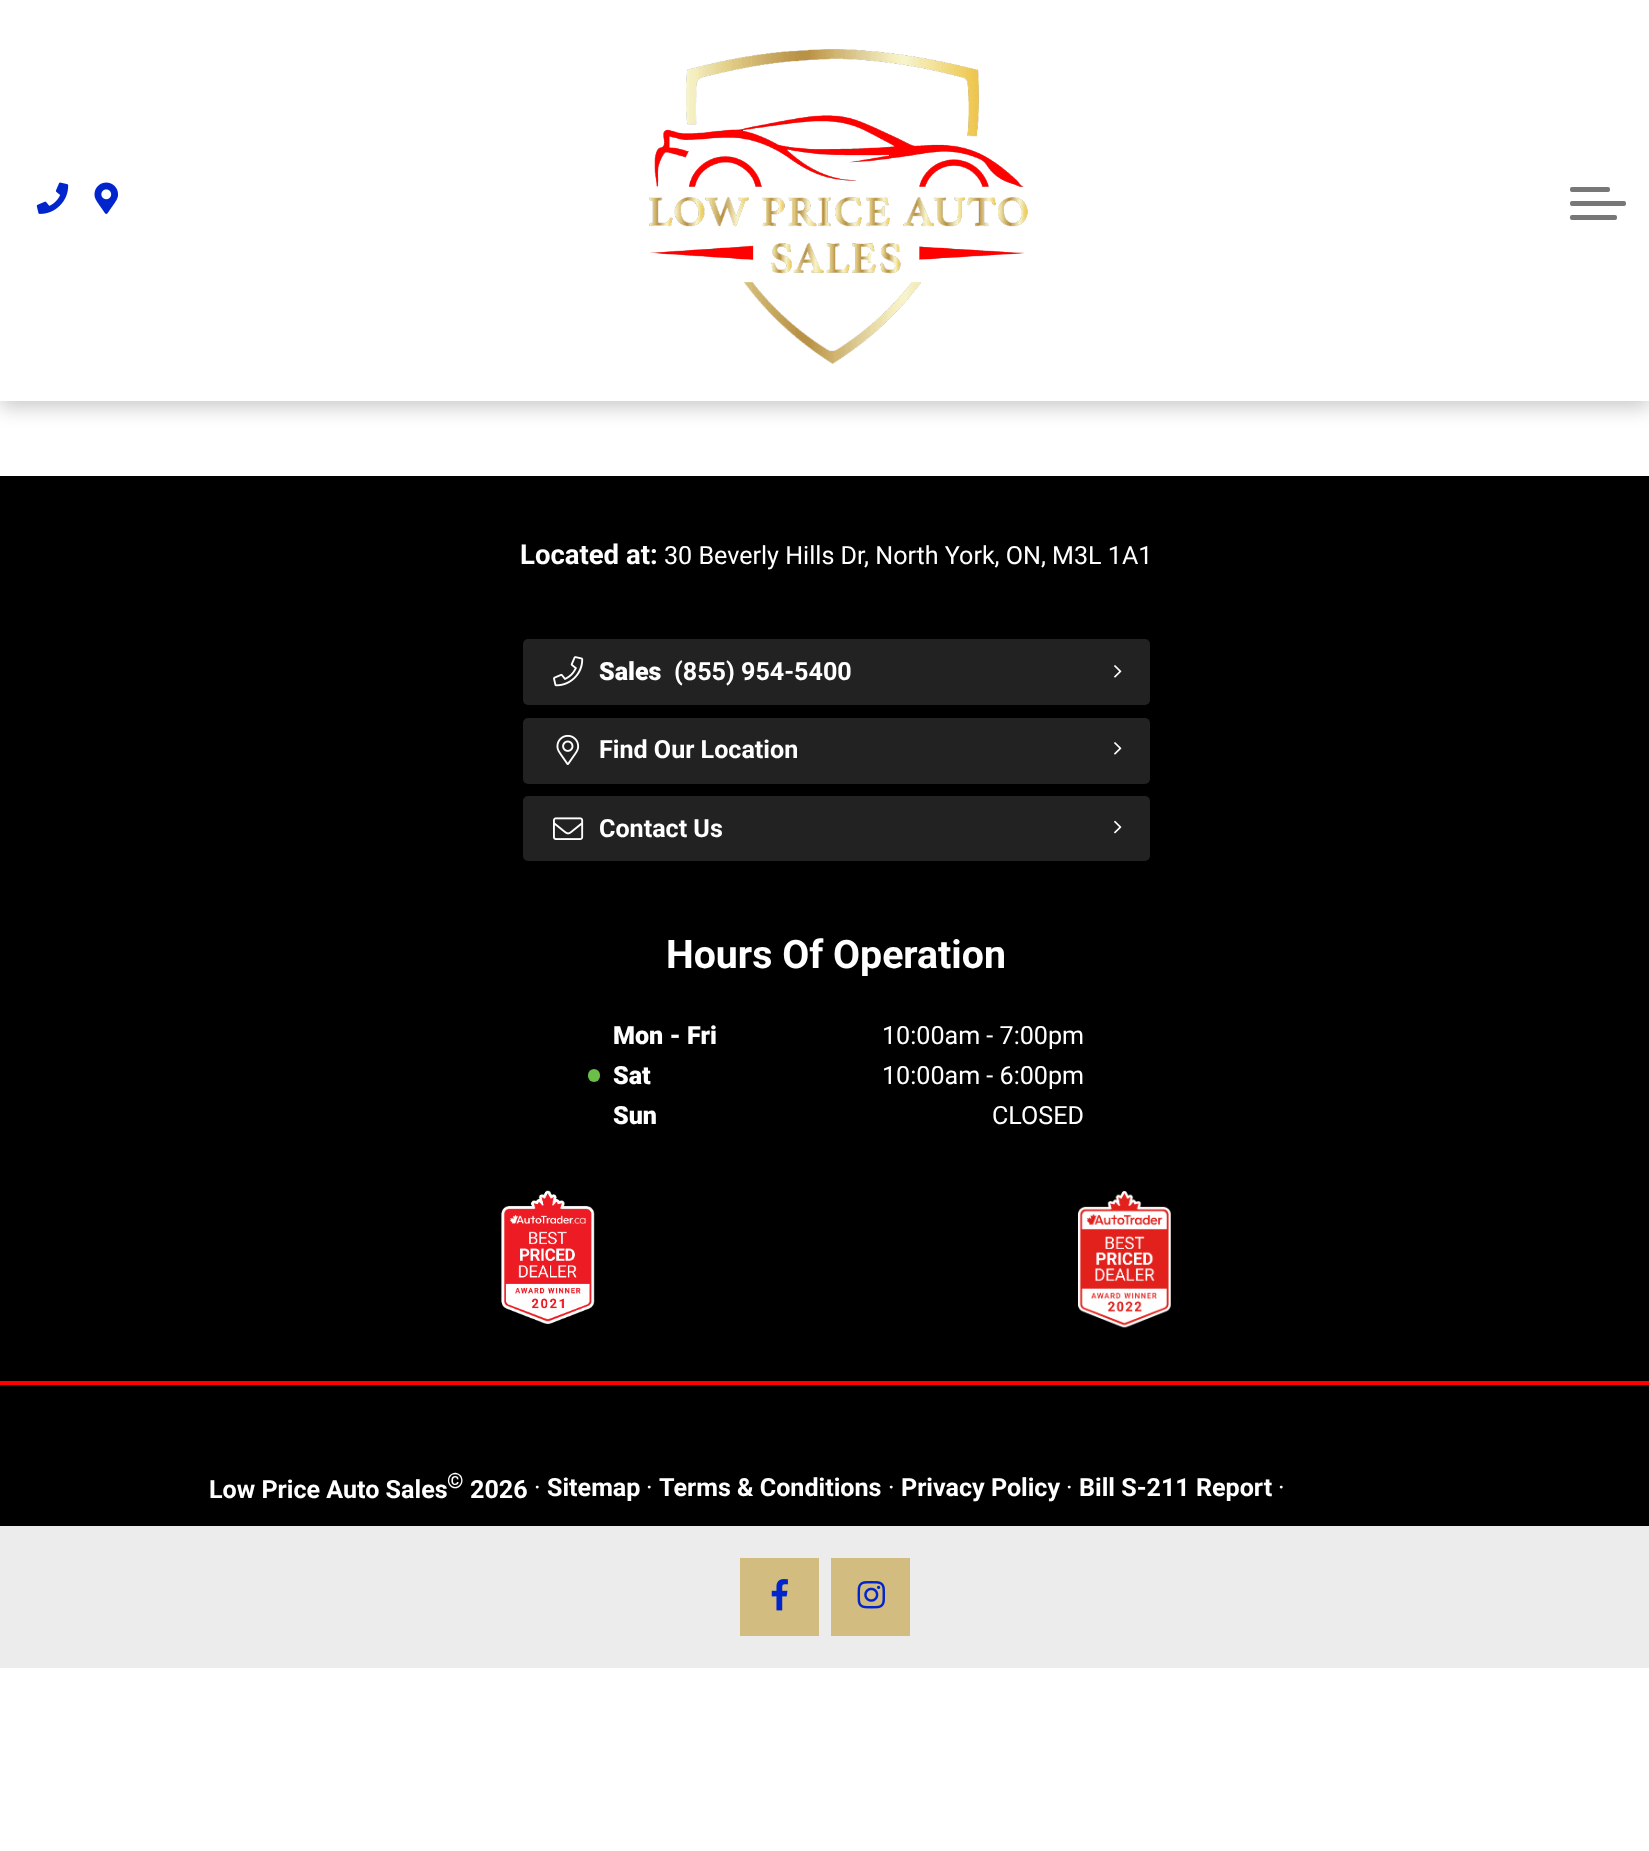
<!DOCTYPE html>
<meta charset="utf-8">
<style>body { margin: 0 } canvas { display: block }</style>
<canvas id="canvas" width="1649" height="1851"></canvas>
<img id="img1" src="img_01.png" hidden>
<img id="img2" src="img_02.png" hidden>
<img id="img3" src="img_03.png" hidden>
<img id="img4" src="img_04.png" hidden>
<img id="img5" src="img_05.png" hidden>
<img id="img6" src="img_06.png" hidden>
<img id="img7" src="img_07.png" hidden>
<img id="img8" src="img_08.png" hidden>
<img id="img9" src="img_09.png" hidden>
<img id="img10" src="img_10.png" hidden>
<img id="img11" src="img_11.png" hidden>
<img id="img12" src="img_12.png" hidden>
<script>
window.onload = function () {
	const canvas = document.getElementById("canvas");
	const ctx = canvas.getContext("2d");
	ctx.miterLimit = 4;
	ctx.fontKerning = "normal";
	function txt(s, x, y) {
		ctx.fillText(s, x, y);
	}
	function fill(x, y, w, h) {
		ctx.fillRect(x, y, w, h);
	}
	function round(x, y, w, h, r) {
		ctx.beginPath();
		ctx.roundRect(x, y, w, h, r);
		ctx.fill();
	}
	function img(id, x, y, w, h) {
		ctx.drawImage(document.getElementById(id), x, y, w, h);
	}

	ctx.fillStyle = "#FFFFFF";
	fill(0, 0, 1649, 1851);
	ctx.fillStyle = "rgba(0, 0, 0, 0.2)";
	ctx.filter = "blur(9.5px)";
	ctx.beginPath();
	ctx.rect(0, 7, 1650, 401);
	ctx.fill();
	ctx.filter = "none";
	ctx.fillStyle = "#FFFFFF";
	fill(0, 0, 1649, 401);
	img("img1", 36, 182, 33, 32);
	img("img2", 94, 182, 24, 32);
	img("img3", 649, 49, 379, 315);
	ctx.fillStyle = "#777777";
	round(1570, 201, 56, 5, 2);
	round(1570, 187, 40, 5, 2);
	round(1570, 215, 47, 5, 2);
	ctx.fillStyle = "#000000";
	fill(0, 476, 1649, 905);
	ctx.fillStyle = "#222222";
	round(523, 639, 627, 66, 5);
	img("img4", 553, 656, 31, 31);
	img("img5", 1114, 665, 8, 13);
	round(523, 718, 627, 66, 5);
	img("img6", 556, 734, 24, 31);
	img("img5", 1114, 742, 8, 13);
	round(523, 796, 627, 65, 5);
	img("img7", 553, 817, 31, 23);
	img("img8", 1114, 820, 8, 14);
	ctx.fillStyle = "#6BBF49";
	round(588, 1069, 12, 13, 6);
	img("img9", 501, 1190, 94, 134);
	img("img10", 1078, 1191, 93, 137);
	ctx.fillStyle = "#000000";
	fill(0, 1385, 1649, 141);
	ctx.fillStyle = "#FF0000";
	fill(0, 1381, 1649, 4);
	ctx.fillStyle = "#ECECEC";
	fill(0, 1526, 1649, 142);
	ctx.fillStyle = "#D3BC7F";
	fill(740, 1558, 79, 78);
	img("img11", 771, 1579, 17, 32);
	fill(831, 1558, 79, 78);
	img("img12", 857, 1581, 28, 28);
	ctx.font = "bold 27.5px Roboto";
	ctx.fillStyle = "#FFFFFF";
	txt("Located at:", 520, 564);
	ctx.font = "25.1px Roboto";
	txt("30 Beverly Hills Dr, North York, ON, M3L 1A1", 664, 564);
	ctx.font = "900 25.1px Roboto";
	txt("Sales", 599, 680);
	ctx.font = "bold 25.1px Roboto";
	txt("(855) 954-5400", 674, 680);
	txt("Find Our Location", 599, 758);
	txt("Contact Us", 599, 837);
	ctx.font = "bold 39.25px Roboto";
	txt("Hours Of Operation", 666, 968);
	ctx.font = "900 25.1px Roboto";
	txt("Mon - Fri", 613, 1044);
	ctx.font = "25.1px Roboto";
	txt("10:00am - 7:00pm", 882, 1044);
	ctx.font = "900 25.1px Roboto";
	txt("Sat", 613, 1084);
	ctx.font = "25.1px Roboto";
	txt("10:00am - 6:00pm", 882, 1084);
	ctx.font = "900 25.1px Roboto";
	txt("Sun", 613, 1124);
	ctx.font = "25.1px Roboto";
	txt("CLOSED", 992, 1124);
	ctx.font = "bold 25.1px Roboto";
	txt("Low Price Auto Sales", 209, 1498);
	ctx.font = "bold 21px Roboto";
	txt("©", 447, 1488);
	ctx.font = "bold 25.1px Roboto";
	txt("2026", 470, 1498);
	ctx.font = "25.1px Roboto";
	txt("·", 534, 1496);
	ctx.font = "bold 25.1px Roboto";
	txt("Sitemap", 547, 1496);
	ctx.font = "25.1px Roboto";
	txt("·", 646, 1496);
	ctx.font = "bold 25.1px Roboto";
	txt("Terms & Conditions", 659, 1496);
	ctx.font = "25.1px Roboto";
	txt("·", 888, 1496);
	ctx.font = "bold 25.1px Roboto";
	txt("Privacy Policy", 901, 1496);
	ctx.font = "25.1px Roboto";
	txt("·", 1066, 1496);
	ctx.font = "bold 25.1px Roboto";
	txt("Bill S-211 Report", 1079, 1496);
	ctx.font = "25.1px Roboto";
	txt("·", 1278, 1496);
};
</script>
